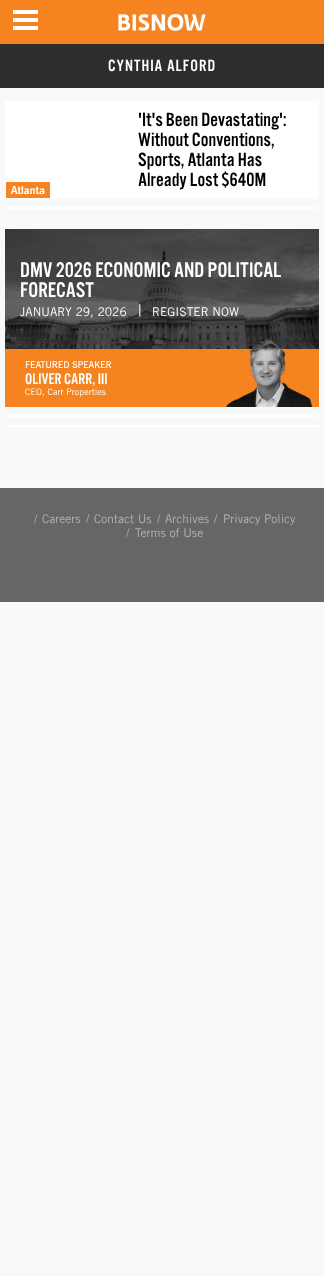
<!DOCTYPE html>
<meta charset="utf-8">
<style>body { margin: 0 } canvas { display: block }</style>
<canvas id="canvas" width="324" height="1276"></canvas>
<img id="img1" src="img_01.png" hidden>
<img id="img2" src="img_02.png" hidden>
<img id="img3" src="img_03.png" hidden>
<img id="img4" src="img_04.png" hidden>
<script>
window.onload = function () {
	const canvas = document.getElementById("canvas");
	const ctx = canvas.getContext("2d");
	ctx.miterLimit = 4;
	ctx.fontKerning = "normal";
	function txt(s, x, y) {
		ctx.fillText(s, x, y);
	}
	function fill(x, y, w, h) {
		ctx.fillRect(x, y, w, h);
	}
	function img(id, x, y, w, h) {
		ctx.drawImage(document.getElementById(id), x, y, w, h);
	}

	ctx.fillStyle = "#F8F9FA";
	fill(0, 0, 324, 1276);
	ctx.fillStyle = "#F58320";
	fill(0, 0, 324, 44);
	img("img1", 13, 10, 25, 20);
	img("img2", 118, 14, 88, 17);
	ctx.fillStyle = "#2D2D2D";
	fill(0, 44, 324, 44);
	ctx.fillStyle = "#FFFFFF";
	fill(5, 101, 314, 98);
	ctx.fillStyle = "#F58320";
	fill(6, 182, 44, 16);
	ctx.fillStyle = "#FFFFFF";
	fill(5, 207, 314, 2);
	img("img3", 5, 229, 314, 120);
	ctx.fillStyle = "#F58320";
	fill(5, 349, 314, 58);
	img("img4", 225, 339, 88, 68);
	ctx.fillStyle = "#FFFFFF";
	fill(5, 415, 314, 2);
	fill(5, 425, 314, 2);
	ctx.fillStyle = "#666666";
	fill(0, 488, 324, 114);
	ctx.letterSpacing = "1px";
	ctx.font = "17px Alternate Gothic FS";
	ctx.fillStyle = "#FFFFFF";
	txt("CYNTHIA ALFORD", 108, 71);
	ctx.letterSpacing = "0px";
	ctx.font = "600 12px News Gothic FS";
	txt("Atlanta", 11, 194);
	ctx.font = "20px Alternate Gothic FS";
	ctx.fillStyle = "#000000";
	txt("'It's Been Devastating':", 138, 126);
	txt("Without Conventions,", 138, 146);
	txt("Sports, Atlanta Has", 138, 166);
	txt("Already Lost $640M", 138, 186);
	ctx.font = "22px Alternate Gothic FS";
	ctx.fillStyle = "#FFFFFF";
	txt("DMV 2026 ECONOMIC AND POLITICAL", 20, 277);
	txt("FORECAST", 20, 297);
	ctx.font = "12px Trade Gothic";
	txt("JANUARY 29, 2026", 20, 316);
	ctx.font = "16px Trade Gothic";
	txt("|", 138, 316);
	ctx.font = "12px Trade Gothic";
	txt("REGISTER NOW", 152, 316);
	ctx.font = "bold 9px Trade Gothic";
	txt("FEATURED SPEAKER", 25, 368);
	ctx.font = "16px Alternate Gothic FS";
	txt("OLIVER CARR, III", 25, 384);
	ctx.font = "9px Trade Gothic";
	txt("CEO, Carr Properties", 25, 395);
	ctx.font = "12px Trade Gothic";
	ctx.fillStyle = "#B1B1B1";
	txt("/", 34, 523);
	txt("Careers", 42, 523);
	txt("/", 86, 523);
	txt("Contact Us", 94, 523);
	txt("/", 214, 523);
	txt("Privacy Policy", 223, 523);
	txt("/", 126, 537);
	txt("Terms of Use", 135, 537);
	txt("/", 157, 523);
	txt("Archives", 165, 523);
};
</script>
